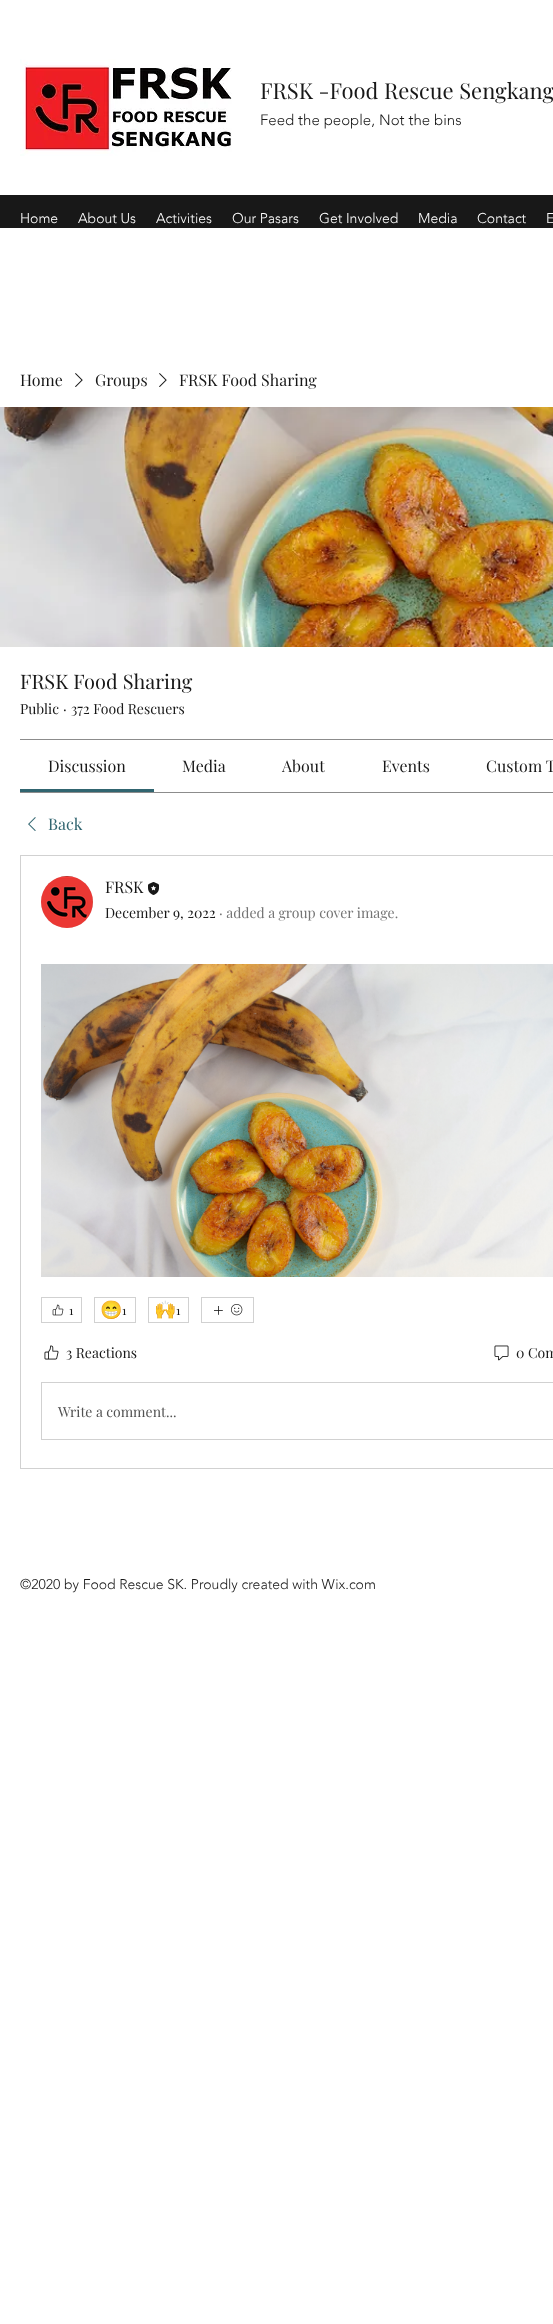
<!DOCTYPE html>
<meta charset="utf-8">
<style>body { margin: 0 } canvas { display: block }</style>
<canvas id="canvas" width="553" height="2324"></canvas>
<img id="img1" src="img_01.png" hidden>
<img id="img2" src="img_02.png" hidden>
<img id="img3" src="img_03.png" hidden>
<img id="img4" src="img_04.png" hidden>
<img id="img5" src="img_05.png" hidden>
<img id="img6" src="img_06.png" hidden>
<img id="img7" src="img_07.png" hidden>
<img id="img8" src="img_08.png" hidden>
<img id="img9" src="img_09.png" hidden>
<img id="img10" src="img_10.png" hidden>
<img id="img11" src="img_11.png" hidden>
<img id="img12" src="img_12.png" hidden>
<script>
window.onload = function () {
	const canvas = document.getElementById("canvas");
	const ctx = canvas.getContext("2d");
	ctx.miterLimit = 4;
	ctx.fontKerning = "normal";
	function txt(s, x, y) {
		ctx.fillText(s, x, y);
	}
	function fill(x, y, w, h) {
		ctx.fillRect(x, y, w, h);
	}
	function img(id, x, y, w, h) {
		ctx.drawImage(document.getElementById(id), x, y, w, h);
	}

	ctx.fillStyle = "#FFFFFF";
	fill(0, 0, 553, 2324);
	img("img1", 20, 59, 212, 97);
	ctx.fillStyle = "#181818";
	fill(0, 195, 553, 33);
	img("img2", 75, 373, 8, 14);
	img("img2", 159, 373, 8, 14);
	img("img3", 0, 407, 553, 240);
	ctx.fillStyle = "#8C8C8C";
	fill(20, 739, 533, 1);
	fill(20, 792, 533, 1);
	ctx.fillStyle = "#316570";
	fill(20, 789, 134, 3);
	img("img4", 28, 817, 8, 14);
	ctx.strokeStyle = "#D1D1D1";
	ctx.strokeRect(20.5, 855.5, 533, 613);
	ctx.fillStyle = "#D8D8D8";
	ctx.beginPath();
	ctx.arc(67, 902, 26, 0, Math.PI * 2);
	ctx.fill();
	img("img5", 41, 876, 52, 52);
	img("img6", 148, 882, 11, 13);
	img("img7", 41, 964, 512, 313);
	ctx.strokeRect(41.5, 1297.5, 40, 25);
	img("img8", 52, 1304, 12, 12);
	ctx.strokeRect(94.5, 1297.5, 41, 25);
	ctx.strokeRect(148.5, 1297.5, 40, 25);
	ctx.strokeRect(201.5, 1297.5, 52, 25);
	img("img9", 214, 1306, 9, 9);
	img("img10", 231, 1304, 12, 12);
	img("img11", 44, 1345, 15, 15);
	img("img12", 494, 1345, 15, 16);
	ctx.strokeRect(41.5, 1382.5, 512, 57);
	ctx.font = "22px Playfair Display";
	ctx.fillStyle = "#181818";
	txt("FRSK -Food Rescue Sengkang", 260, 99);
	ctx.font = "300 15px 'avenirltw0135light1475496'";
	txt("Feed the people, Not the bins", 260, 125);
	ctx.font = "300 14px 'avenirltw0135light1475496'";
	ctx.fillStyle = "#FFFFFF";
	txt("Home", 20, 223);
	txt("About Us", 78, 223);
	txt("Activities", 156, 223);
	txt("Our Pasars", 232, 223);
	txt("Get Involved", 319, 223);
	txt("Media", 418, 223);
	txt("Contact", 477, 223);
	txt("E", 546, 223);
	ctx.font = "16px Playfair Display";
	ctx.fillStyle = "#181818";
	txt("Home", 20, 386);
	txt("Groups", 95, 386);
	txt("FRSK Food Sharing", 179, 386);
	ctx.font = "20px Playfair Display";
	txt("FRSK Food Sharing", 20, 689);
	ctx.font = "14px Playfair Display";
	txt("Public", 20, 714);
	txt("·", 63, 714);
	txt("372 Food Rescuers", 71, 714);
	ctx.font = "16px Playfair Display";
	txt("Discussion", 48, 772);
	txt("Media", 182, 772);
	txt("About", 282, 772);
	txt("Events", 382, 772);
	txt("Custom T", 486, 772);
	ctx.fillStyle = "#316570";
	txt("Back", 48, 830);
	ctx.fillStyle = "#181818";
	txt("FRSK", 105, 893);
	ctx.font = "14px Playfair Display";
	txt("December 9, 2022", 105, 918);
	ctx.fillStyle = "#747474";
	txt("· added a group cover image.", 219, 918);
	ctx.font = "12px Playfair Display";
	ctx.fillStyle = "#181818";
	txt("1", 69, 1315);
	ctx.font = "18px Noto Color Emoji";
	txt("😁", 100, 1316);
	ctx.font = "12px Playfair Display";
	txt("1", 122, 1315);
	ctx.font = "18px Noto Color Emoji";
	txt("🙌", 154, 1316);
	ctx.font = "12px Playfair Display";
	txt("1", 176, 1315);
	ctx.font = "14px Playfair Display";
	txt("3 Reactions", 66, 1358);
	txt("0 Com", 516, 1358);
	ctx.fillStyle = "#525252";
	txt("Write a comment...", 58, 1417);
	ctx.font = "300 14px 'avenirltw0135light1475496'";
	ctx.fillStyle = "#181818";
	txt("©2020 by Food Rescue SK. Proudly created with Wix.com", 20, 1589);
};
</script>
